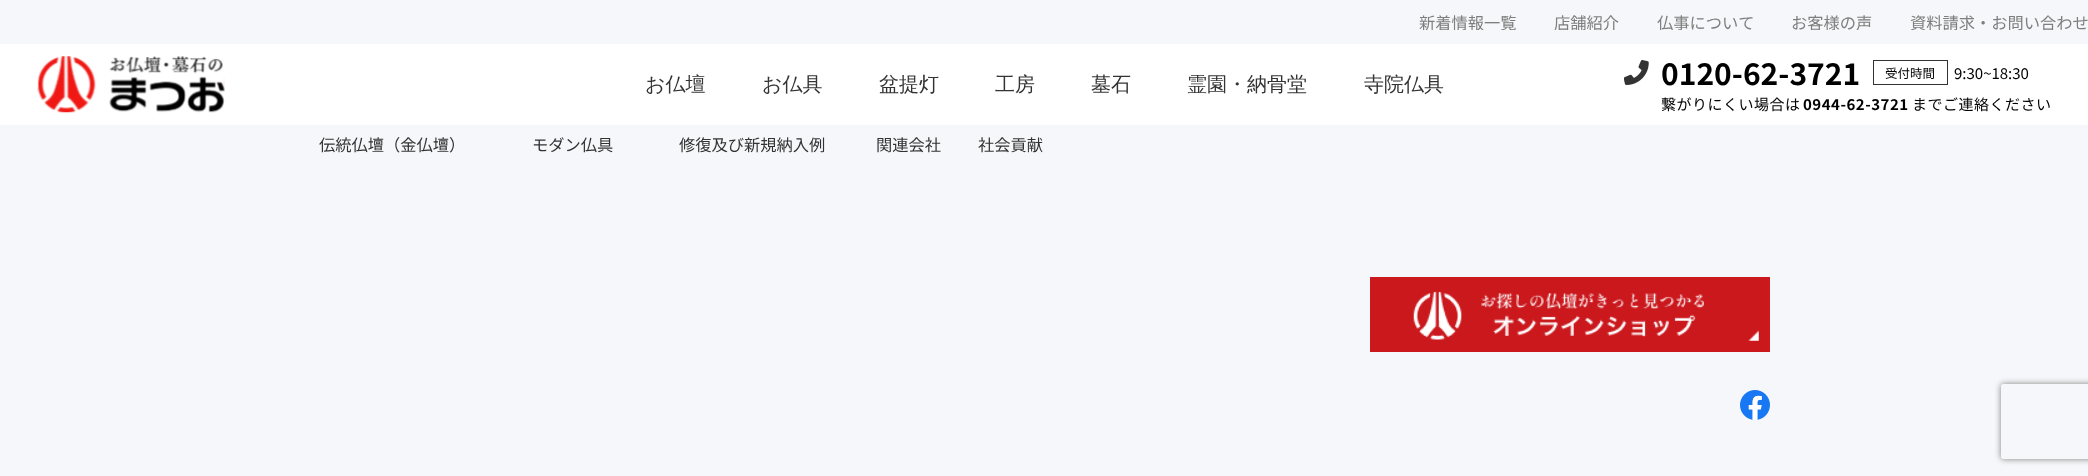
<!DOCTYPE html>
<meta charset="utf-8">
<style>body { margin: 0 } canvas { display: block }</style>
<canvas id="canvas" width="2088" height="476"></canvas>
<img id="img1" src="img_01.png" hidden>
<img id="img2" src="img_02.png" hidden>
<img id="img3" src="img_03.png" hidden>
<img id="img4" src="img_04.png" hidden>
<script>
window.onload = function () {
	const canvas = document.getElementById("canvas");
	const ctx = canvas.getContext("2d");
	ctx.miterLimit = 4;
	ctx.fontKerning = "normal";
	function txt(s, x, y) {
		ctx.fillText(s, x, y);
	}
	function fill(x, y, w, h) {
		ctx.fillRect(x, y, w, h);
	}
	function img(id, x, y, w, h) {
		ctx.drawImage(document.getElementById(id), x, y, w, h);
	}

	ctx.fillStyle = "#F5F7FA";
	fill(0, 0, 2088, 476);
	ctx.fillStyle = "#FFFFFF";
	fill(0, 44, 2088, 81);
	img("img1", 37, 56, 188, 57);
	img("img2", 1624, 60, 25, 25);
	ctx.strokeStyle = "#333333";
	ctx.strokeRect(1873.5, 60.5, 74, 24);
	img("img3", 1370, 277, 400, 75);
	img("img4", 1740, 390, 30, 30);
	ctx.save();
	ctx.beginPath();
	ctx.moveTo(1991, 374);
	ctx.lineTo(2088, 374);
	ctx.lineTo(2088, 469);
	ctx.lineTo(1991, 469);
	ctx.closePath();
	ctx.moveTo(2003.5, 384);
	ctx.lineTo(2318.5, 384);
	ctx.bezierCurveTo(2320, 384, 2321, 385, 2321, 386.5);
	ctx.lineTo(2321, 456.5);
	ctx.bezierCurveTo(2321, 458, 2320, 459, 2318.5, 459);
	ctx.lineTo(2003.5, 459);
	ctx.bezierCurveTo(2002, 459, 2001, 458, 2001, 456.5);
	ctx.lineTo(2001, 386.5);
	ctx.bezierCurveTo(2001, 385, 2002, 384, 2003.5, 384);
	ctx.closePath();
	ctx.clip("evenodd");
	ctx.fillStyle = "#808080";
	ctx.filter = "blur(3px)";
	ctx.beginPath();
	ctx.roundRect(2001, 384, 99, 75, 2.5);
	ctx.fill();
	ctx.filter = "none";
	ctx.restore();
	ctx.save();
	ctx.beginPath();
	ctx.rect(1419, 14, 97, 16);
	ctx.clip();
	ctx.font = "16.25px Noto Sans JP";
	ctx.fillStyle = "#7E7E7E";
	txt("新着情報一覧", 1419, 29);
	ctx.restore();
	ctx.save();
	ctx.beginPath();
	ctx.rect(1554, 14, 65, 16);
	ctx.clip();
	ctx.font = "16.25px Noto Sans JP";
	ctx.fillStyle = "#7E7E7E";
	txt("店舗紹介", 1554, 29);
	ctx.restore();
	ctx.save();
	ctx.beginPath();
	ctx.rect(1656, 14, 98, 16);
	ctx.clip();
	ctx.font = "16.25px Noto Sans JP";
	ctx.fillStyle = "#7E7E7E";
	txt("仏事について", 1657, 29);
	ctx.restore();
	ctx.save();
	ctx.beginPath();
	ctx.rect(1791, 14, 82, 16);
	ctx.clip();
	ctx.font = "16.25px Noto Sans JP";
	ctx.fillStyle = "#7E7E7E";
	txt("お客様の声", 1791, 29);
	ctx.restore();
	ctx.save();
	ctx.beginPath();
	ctx.rect(1910, 14, 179, 16);
	ctx.clip();
	ctx.font = "16.25px Noto Sans JP";
	ctx.fillStyle = "#7E7E7E";
	txt("資料請求・お問い合わせ", 1910, 29);
	ctx.restore();
	ctx.font = "500 20px WenQuanYi Zen Hei";
	ctx.fillStyle = "#333333";
	txt("お仏壇", 645, 91);
	txt("お仏具", 762, 91);
	txt("盆提灯", 879, 91);
	txt("工房", 995, 91);
	txt("墓石", 1091, 91);
	txt("霊園・納骨堂", 1187, 91);
	txt("寺院仏具", 1364, 91);
	ctx.font = "bold 30px Noto Sans JP";
	ctx.fillStyle = "#000000";
	txt("0120-62-3721", 1661, 85);
	ctx.font = "12.5px Noto Sans JP";
	txt("受付時間", 1885, 78);
	ctx.font = "15px Noto Sans JP";
	txt("9:30~18:30", 1954, 79);
	ctx.letterSpacing = "0.5px";
	txt("繋がりにくい場合は", 1661, 110);
	ctx.font = "bold 15px Noto Sans JP";
	txt("0944-62-3721", 1803, 110);
	ctx.font = "15px Noto Sans JP";
	txt("までご連絡ください", 1912, 110);
	ctx.letterSpacing = "0px";
	ctx.font = "16.25px Noto Sans JP";
	ctx.fillStyle = "#333333";
	txt("伝統仏壇（金仏壇）", 319, 151);
	txt("モダン仏具", 532, 151);
	txt("修復及び新規納入例", 679, 151);
	txt("関連会社", 876, 151);
	txt("社会貢献", 978, 151);
};
</script>
